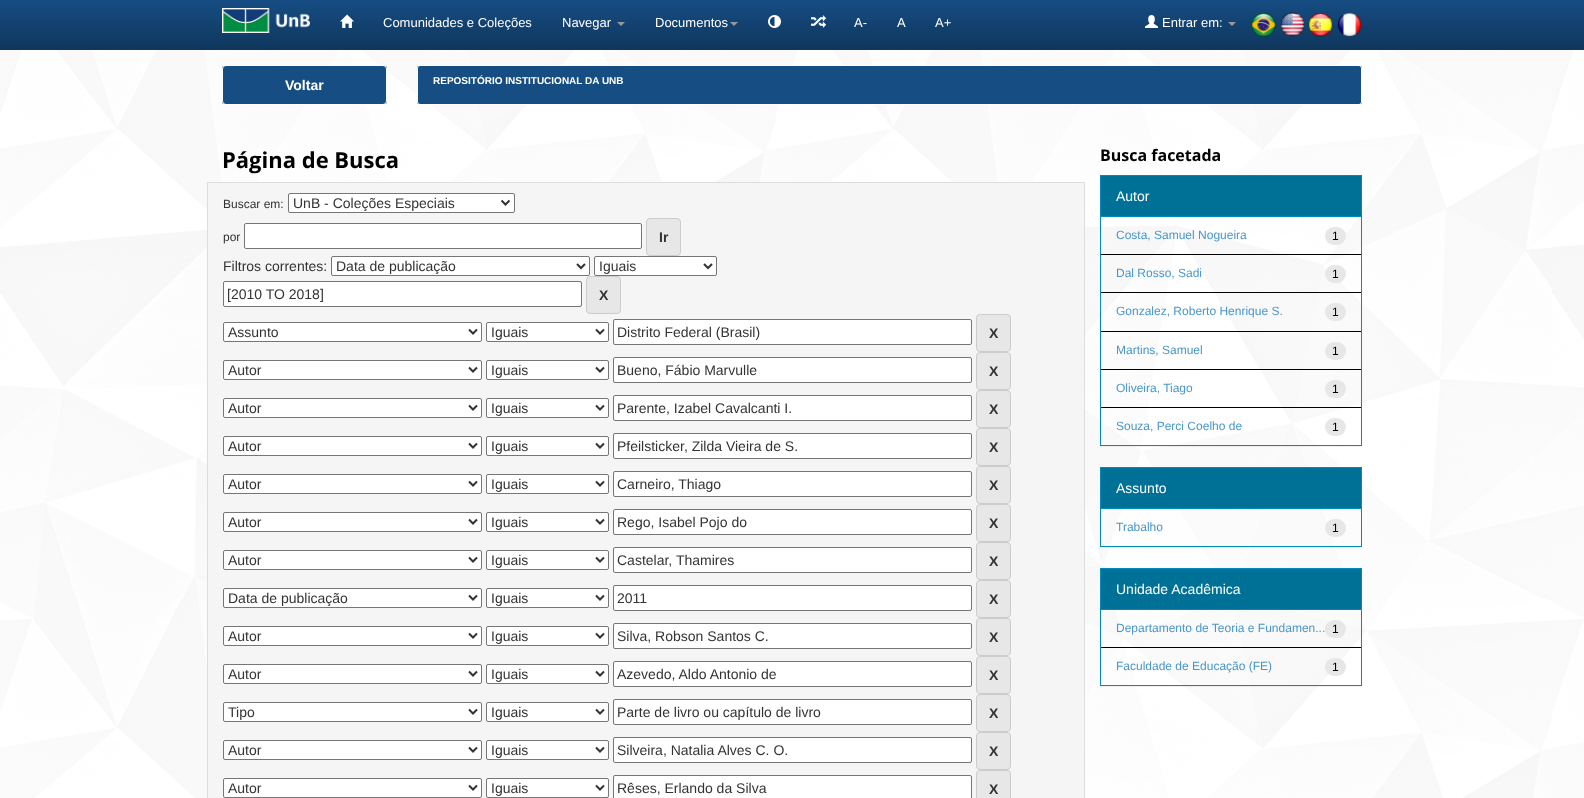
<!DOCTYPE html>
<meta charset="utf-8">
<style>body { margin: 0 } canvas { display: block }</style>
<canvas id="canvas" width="1584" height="798"></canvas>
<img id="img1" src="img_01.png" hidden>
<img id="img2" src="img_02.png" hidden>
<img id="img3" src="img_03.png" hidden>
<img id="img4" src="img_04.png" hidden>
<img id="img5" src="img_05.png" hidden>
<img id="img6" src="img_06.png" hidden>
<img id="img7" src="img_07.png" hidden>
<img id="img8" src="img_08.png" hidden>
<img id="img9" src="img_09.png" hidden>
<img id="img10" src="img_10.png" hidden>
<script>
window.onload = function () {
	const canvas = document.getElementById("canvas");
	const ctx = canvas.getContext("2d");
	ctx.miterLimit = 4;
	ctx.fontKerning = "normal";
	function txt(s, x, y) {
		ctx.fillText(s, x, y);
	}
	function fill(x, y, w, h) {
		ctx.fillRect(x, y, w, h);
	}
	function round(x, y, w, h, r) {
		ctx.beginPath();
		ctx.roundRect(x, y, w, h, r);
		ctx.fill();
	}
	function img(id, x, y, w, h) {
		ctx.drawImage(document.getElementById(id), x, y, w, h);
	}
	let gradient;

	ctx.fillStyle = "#FFFFFF";
	fill(0, 0, 1584, 798);
	img("img1", 0, 50, 1584, 748);
	gradient = ctx.createLinearGradient(792, 0, 792, 50);
	gradient.addColorStop(0, "#164D83");
	gradient.addColorStop(1, "#0F365C");
	ctx.fillStyle = gradient;
	fill(0, 0, 1584, 50);
	img("img2", 222, 8, 88, 25);
	img("img3", 340, 14, 14, 14);
	ctx.fillStyle = "#999999";
	ctx.beginPath();
	ctx.moveTo(617, 22);
	ctx.lineTo(625, 22);
	ctx.lineTo(621, 26);
	ctx.closePath();
	ctx.fill();
	ctx.beginPath();
	ctx.moveTo(730, 22);
	ctx.lineTo(738, 22);
	ctx.lineTo(734, 26);
	ctx.closePath();
	ctx.fill();
	img("img4", 768, 15, 13, 13);
	img("img5", 811, 15, 16, 13);
	img("img6", 1145, 15, 13, 13);
	ctx.beginPath();
	ctx.moveTo(1228, 22);
	ctx.lineTo(1236, 22);
	ctx.lineTo(1232, 26);
	ctx.closePath();
	ctx.fill();
	img("img7", 1251, 12, 25, 25);
	img("img8", 1280, 12, 25, 25);
	img("img9", 1308, 13, 25, 24);
	img("img10", 1337, 13, 25, 24);
	ctx.save();
	ctx.beginPath();
	ctx.roundRect(222, 65, 165, 40, 4);
	ctx.clip();
	ctx.fillStyle = "#164D83";
	fill(222, 66, 165, 38);
	ctx.restore();
	ctx.beginPath();
	ctx.roundRect(222.5, 65.5, 164, 39, 3.5);
	ctx.strokeStyle = "#FFFFFF";
	ctx.stroke();
	ctx.save();
	ctx.beginPath();
	ctx.roundRect(417, 65, 945, 40, 3);
	ctx.clip();
	ctx.fillStyle = "#164D83";
	fill(417, 66, 945, 38);
	ctx.restore();
	ctx.beginPath();
	ctx.roundRect(417.5, 65.5, 944, 39, 2.5);
	ctx.stroke();
	ctx.strokeStyle = "#DDDDDD";
	ctx.strokeRect(207.5, 182.5, 877, 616);
	ctx.fillStyle = "#F5F5F5";
	fill(208, 183, 876, 615);
	ctx.fillStyle = "#FFFFFF";
	ctx.beginPath();
	ctx.roundRect(288.5, 193.5, 226, 19, 1.5);
	ctx.fill();
	ctx.strokeStyle = "#767676";
	ctx.stroke();
	ctx.beginPath();
	ctx.moveTo(501.5, 200.5);
	ctx.lineTo(505.5, 204.5);
	ctx.lineTo(509.5, 200.5);
	ctx.strokeStyle = "#333333";
	ctx.lineWidth = 2;
	ctx.stroke();
	ctx.beginPath();
	ctx.roundRect(244.5, 223.5, 397, 25, 1.5);
	ctx.fill();
	ctx.strokeStyle = "#767676";
	ctx.lineWidth = 1;
	ctx.stroke();
	ctx.fillStyle = "#E7E7E7";
	ctx.beginPath();
	ctx.roundRect(646.5, 218.5, 34, 37, 3.5);
	ctx.fill();
	ctx.strokeStyle = "#CCCCCC";
	ctx.stroke();
	ctx.fillStyle = "#FFFFFF";
	ctx.beginPath();
	ctx.roundRect(331.5, 256.5, 258, 19, 1.5);
	ctx.fill();
	ctx.strokeStyle = "#767676";
	ctx.stroke();
	ctx.beginPath();
	ctx.moveTo(577, 264);
	ctx.lineTo(581, 268);
	ctx.lineTo(585, 264);
	ctx.strokeStyle = "#333333";
	ctx.lineWidth = 2;
	ctx.stroke();
	ctx.beginPath();
	ctx.roundRect(594.5, 256.5, 122, 19, 1.5);
	ctx.fill();
	ctx.strokeStyle = "#767676";
	ctx.lineWidth = 1;
	ctx.stroke();
	ctx.beginPath();
	ctx.moveTo(704, 264);
	ctx.lineTo(708, 268);
	ctx.lineTo(712, 264);
	ctx.strokeStyle = "#333333";
	ctx.lineWidth = 2;
	ctx.stroke();
	ctx.beginPath();
	ctx.roundRect(223.5, 281.5, 358, 25, 1.5);
	ctx.fill();
	ctx.strokeStyle = "#767676";
	ctx.lineWidth = 1;
	ctx.stroke();
	ctx.fillStyle = "#E7E7E7";
	ctx.beginPath();
	ctx.roundRect(586.5, 276.5, 34, 37, 3.5);
	ctx.fill();
	ctx.strokeStyle = "#CCCCCC";
	ctx.stroke();
	ctx.fillStyle = "#FFFFFF";
	ctx.beginPath();
	ctx.roundRect(223.5, 322.5, 258, 19, 1.5);
	ctx.fill();
	ctx.strokeStyle = "#767676";
	ctx.stroke();
	ctx.beginPath();
	ctx.moveTo(469, 329.5);
	ctx.lineTo(473, 333.5);
	ctx.lineTo(477, 329.5);
	ctx.strokeStyle = "#333333";
	ctx.lineWidth = 2;
	ctx.stroke();
	ctx.beginPath();
	ctx.roundRect(486.5, 322.5, 122, 19, 1.5);
	ctx.fill();
	ctx.strokeStyle = "#767676";
	ctx.lineWidth = 1;
	ctx.stroke();
	ctx.beginPath();
	ctx.moveTo(596, 329.5);
	ctx.lineTo(600, 333.5);
	ctx.lineTo(604, 329.5);
	ctx.strokeStyle = "#333333";
	ctx.lineWidth = 2;
	ctx.stroke();
	ctx.beginPath();
	ctx.roundRect(613.5, 319.5, 358, 25, 1.5);
	ctx.fill();
	ctx.strokeStyle = "#767676";
	ctx.lineWidth = 1;
	ctx.stroke();
	ctx.fillStyle = "#E7E7E7";
	ctx.beginPath();
	ctx.roundRect(976.5, 314.5, 34, 37, 3.5);
	ctx.fill();
	ctx.strokeStyle = "#CCCCCC";
	ctx.stroke();
	ctx.fillStyle = "#FFFFFF";
	ctx.beginPath();
	ctx.roundRect(223.5, 360.5, 258, 19, 1.5);
	ctx.fill();
	ctx.strokeStyle = "#767676";
	ctx.stroke();
	ctx.beginPath();
	ctx.moveTo(469, 367.5);
	ctx.lineTo(473, 371.5);
	ctx.lineTo(477, 367.5);
	ctx.strokeStyle = "#333333";
	ctx.lineWidth = 2;
	ctx.stroke();
	ctx.beginPath();
	ctx.roundRect(486.5, 360.5, 122, 19, 1.5);
	ctx.fill();
	ctx.strokeStyle = "#767676";
	ctx.lineWidth = 1;
	ctx.stroke();
	ctx.beginPath();
	ctx.moveTo(596, 367.5);
	ctx.lineTo(600, 371.5);
	ctx.lineTo(604, 367.5);
	ctx.strokeStyle = "#333333";
	ctx.lineWidth = 2;
	ctx.stroke();
	ctx.beginPath();
	ctx.roundRect(613.5, 357.5, 358, 25, 1.5);
	ctx.fill();
	ctx.strokeStyle = "#767676";
	ctx.lineWidth = 1;
	ctx.stroke();
	ctx.fillStyle = "#E7E7E7";
	ctx.beginPath();
	ctx.roundRect(976.5, 352.5, 34, 37, 3.5);
	ctx.fill();
	ctx.strokeStyle = "#CCCCCC";
	ctx.stroke();
	ctx.fillStyle = "#FFFFFF";
	ctx.beginPath();
	ctx.roundRect(223.5, 398.5, 258, 19, 1.5);
	ctx.fill();
	ctx.strokeStyle = "#767676";
	ctx.stroke();
	ctx.beginPath();
	ctx.moveTo(469, 405.5);
	ctx.lineTo(473, 409.5);
	ctx.lineTo(477, 405.5);
	ctx.strokeStyle = "#333333";
	ctx.lineWidth = 2;
	ctx.stroke();
	ctx.beginPath();
	ctx.roundRect(486.5, 398.5, 122, 19, 1.5);
	ctx.fill();
	ctx.strokeStyle = "#767676";
	ctx.lineWidth = 1;
	ctx.stroke();
	ctx.beginPath();
	ctx.moveTo(596, 405.5);
	ctx.lineTo(600, 409.5);
	ctx.lineTo(604, 405.5);
	ctx.strokeStyle = "#333333";
	ctx.lineWidth = 2;
	ctx.stroke();
	ctx.beginPath();
	ctx.roundRect(613.5, 395.5, 358, 25, 1.5);
	ctx.fill();
	ctx.strokeStyle = "#767676";
	ctx.lineWidth = 1;
	ctx.stroke();
	ctx.fillStyle = "#E7E7E7";
	ctx.beginPath();
	ctx.roundRect(976.5, 390.5, 34, 37, 3.5);
	ctx.fill();
	ctx.strokeStyle = "#CCCCCC";
	ctx.stroke();
	ctx.fillStyle = "#FFFFFF";
	ctx.beginPath();
	ctx.roundRect(223.5, 436.5, 258, 19, 1.5);
	ctx.fill();
	ctx.strokeStyle = "#767676";
	ctx.stroke();
	ctx.beginPath();
	ctx.moveTo(469, 443.5);
	ctx.lineTo(473, 447.5);
	ctx.lineTo(477, 443.5);
	ctx.strokeStyle = "#333333";
	ctx.lineWidth = 2;
	ctx.stroke();
	ctx.beginPath();
	ctx.roundRect(486.5, 436.5, 122, 19, 1.5);
	ctx.fill();
	ctx.strokeStyle = "#767676";
	ctx.lineWidth = 1;
	ctx.stroke();
	ctx.beginPath();
	ctx.moveTo(596, 443.5);
	ctx.lineTo(600, 447.5);
	ctx.lineTo(604, 443.5);
	ctx.strokeStyle = "#333333";
	ctx.lineWidth = 2;
	ctx.stroke();
	ctx.beginPath();
	ctx.roundRect(613.5, 433.5, 358, 25, 1.5);
	ctx.fill();
	ctx.strokeStyle = "#767676";
	ctx.lineWidth = 1;
	ctx.stroke();
	ctx.fillStyle = "#E7E7E7";
	ctx.beginPath();
	ctx.roundRect(976.5, 428.5, 34, 37, 3.5);
	ctx.fill();
	ctx.strokeStyle = "#CCCCCC";
	ctx.stroke();
	ctx.fillStyle = "#FFFFFF";
	ctx.beginPath();
	ctx.roundRect(223.5, 474.5, 258, 19, 1.5);
	ctx.fill();
	ctx.strokeStyle = "#767676";
	ctx.stroke();
	ctx.beginPath();
	ctx.moveTo(469, 481.5);
	ctx.lineTo(473, 485.5);
	ctx.lineTo(477, 481.5);
	ctx.strokeStyle = "#333333";
	ctx.lineWidth = 2;
	ctx.stroke();
	ctx.beginPath();
	ctx.roundRect(486.5, 474.5, 122, 19, 1.5);
	ctx.fill();
	ctx.strokeStyle = "#767676";
	ctx.lineWidth = 1;
	ctx.stroke();
	ctx.beginPath();
	ctx.moveTo(596, 481.5);
	ctx.lineTo(600, 485.5);
	ctx.lineTo(604, 481.5);
	ctx.strokeStyle = "#333333";
	ctx.lineWidth = 2;
	ctx.stroke();
	ctx.beginPath();
	ctx.roundRect(613.5, 471.5, 358, 25, 1.5);
	ctx.fill();
	ctx.strokeStyle = "#767676";
	ctx.lineWidth = 1;
	ctx.stroke();
	ctx.fillStyle = "#E7E7E7";
	ctx.beginPath();
	ctx.roundRect(976.5, 466.5, 34, 37, 3.5);
	ctx.fill();
	ctx.strokeStyle = "#CCCCCC";
	ctx.stroke();
	ctx.fillStyle = "#FFFFFF";
	ctx.beginPath();
	ctx.roundRect(223.5, 512.5, 258, 19, 1.5);
	ctx.fill();
	ctx.strokeStyle = "#767676";
	ctx.stroke();
	ctx.beginPath();
	ctx.moveTo(469, 519.5);
	ctx.lineTo(473, 523.5);
	ctx.lineTo(477, 519.5);
	ctx.strokeStyle = "#333333";
	ctx.lineWidth = 2;
	ctx.stroke();
	ctx.beginPath();
	ctx.roundRect(486.5, 512.5, 122, 19, 1.5);
	ctx.fill();
	ctx.strokeStyle = "#767676";
	ctx.lineWidth = 1;
	ctx.stroke();
	ctx.beginPath();
	ctx.moveTo(596, 519.5);
	ctx.lineTo(600, 523.5);
	ctx.lineTo(604, 519.5);
	ctx.strokeStyle = "#333333";
	ctx.lineWidth = 2;
	ctx.stroke();
	ctx.beginPath();
	ctx.roundRect(613.5, 509.5, 358, 25, 1.5);
	ctx.fill();
	ctx.strokeStyle = "#767676";
	ctx.lineWidth = 1;
	ctx.stroke();
	ctx.fillStyle = "#E7E7E7";
	ctx.beginPath();
	ctx.roundRect(976.5, 504.5, 34, 37, 3.5);
	ctx.fill();
	ctx.strokeStyle = "#CCCCCC";
	ctx.stroke();
	ctx.fillStyle = "#FFFFFF";
	ctx.beginPath();
	ctx.roundRect(223.5, 550.5, 258, 19, 1.5);
	ctx.fill();
	ctx.strokeStyle = "#767676";
	ctx.stroke();
	ctx.beginPath();
	ctx.moveTo(469, 557.5);
	ctx.lineTo(473, 561.5);
	ctx.lineTo(477, 557.5);
	ctx.strokeStyle = "#333333";
	ctx.lineWidth = 2;
	ctx.stroke();
	ctx.beginPath();
	ctx.roundRect(486.5, 550.5, 122, 19, 1.5);
	ctx.fill();
	ctx.strokeStyle = "#767676";
	ctx.lineWidth = 1;
	ctx.stroke();
	ctx.beginPath();
	ctx.moveTo(596, 557.5);
	ctx.lineTo(600, 561.5);
	ctx.lineTo(604, 557.5);
	ctx.strokeStyle = "#333333";
	ctx.lineWidth = 2;
	ctx.stroke();
	ctx.beginPath();
	ctx.roundRect(613.5, 547.5, 358, 25, 1.5);
	ctx.fill();
	ctx.strokeStyle = "#767676";
	ctx.lineWidth = 1;
	ctx.stroke();
	ctx.fillStyle = "#E7E7E7";
	ctx.beginPath();
	ctx.roundRect(976.5, 542.5, 34, 37, 3.5);
	ctx.fill();
	ctx.strokeStyle = "#CCCCCC";
	ctx.stroke();
	ctx.fillStyle = "#FFFFFF";
	ctx.beginPath();
	ctx.roundRect(223.5, 588.5, 258, 19, 1.5);
	ctx.fill();
	ctx.strokeStyle = "#767676";
	ctx.stroke();
	ctx.beginPath();
	ctx.moveTo(469, 595.5);
	ctx.lineTo(473, 599.5);
	ctx.lineTo(477, 595.5);
	ctx.strokeStyle = "#333333";
	ctx.lineWidth = 2;
	ctx.stroke();
	ctx.beginPath();
	ctx.roundRect(486.5, 588.5, 122, 19, 1.5);
	ctx.fill();
	ctx.strokeStyle = "#767676";
	ctx.lineWidth = 1;
	ctx.stroke();
	ctx.beginPath();
	ctx.moveTo(596, 595.5);
	ctx.lineTo(600, 599.5);
	ctx.lineTo(604, 595.5);
	ctx.strokeStyle = "#333333";
	ctx.lineWidth = 2;
	ctx.stroke();
	ctx.beginPath();
	ctx.roundRect(613.5, 585.5, 358, 25, 1.5);
	ctx.fill();
	ctx.strokeStyle = "#767676";
	ctx.lineWidth = 1;
	ctx.stroke();
	ctx.fillStyle = "#E7E7E7";
	ctx.beginPath();
	ctx.roundRect(976.5, 580.5, 34, 37, 3.5);
	ctx.fill();
	ctx.strokeStyle = "#CCCCCC";
	ctx.stroke();
	ctx.fillStyle = "#FFFFFF";
	ctx.beginPath();
	ctx.roundRect(223.5, 626.5, 258, 19, 1.5);
	ctx.fill();
	ctx.strokeStyle = "#767676";
	ctx.stroke();
	ctx.beginPath();
	ctx.moveTo(469, 633.5);
	ctx.lineTo(473, 637.5);
	ctx.lineTo(477, 633.5);
	ctx.strokeStyle = "#333333";
	ctx.lineWidth = 2;
	ctx.stroke();
	ctx.beginPath();
	ctx.roundRect(486.5, 626.5, 122, 19, 1.5);
	ctx.fill();
	ctx.strokeStyle = "#767676";
	ctx.lineWidth = 1;
	ctx.stroke();
	ctx.beginPath();
	ctx.moveTo(596, 633.5);
	ctx.lineTo(600, 637.5);
	ctx.lineTo(604, 633.5);
	ctx.strokeStyle = "#333333";
	ctx.lineWidth = 2;
	ctx.stroke();
	ctx.beginPath();
	ctx.roundRect(613.5, 623.5, 358, 25, 1.5);
	ctx.fill();
	ctx.strokeStyle = "#767676";
	ctx.lineWidth = 1;
	ctx.stroke();
	ctx.fillStyle = "#E7E7E7";
	ctx.beginPath();
	ctx.roundRect(976.5, 618.5, 34, 37, 3.5);
	ctx.fill();
	ctx.strokeStyle = "#CCCCCC";
	ctx.stroke();
	ctx.fillStyle = "#FFFFFF";
	ctx.beginPath();
	ctx.roundRect(223.5, 664.5, 258, 19, 1.5);
	ctx.fill();
	ctx.strokeStyle = "#767676";
	ctx.stroke();
	ctx.beginPath();
	ctx.moveTo(469, 671.5);
	ctx.lineTo(473, 675.5);
	ctx.lineTo(477, 671.5);
	ctx.strokeStyle = "#333333";
	ctx.lineWidth = 2;
	ctx.stroke();
	ctx.beginPath();
	ctx.roundRect(486.5, 664.5, 122, 19, 1.5);
	ctx.fill();
	ctx.strokeStyle = "#767676";
	ctx.lineWidth = 1;
	ctx.stroke();
	ctx.beginPath();
	ctx.moveTo(596, 671.5);
	ctx.lineTo(600, 675.5);
	ctx.lineTo(604, 671.5);
	ctx.strokeStyle = "#333333";
	ctx.lineWidth = 2;
	ctx.stroke();
	ctx.beginPath();
	ctx.roundRect(613.5, 661.5, 358, 25, 1.5);
	ctx.fill();
	ctx.strokeStyle = "#767676";
	ctx.lineWidth = 1;
	ctx.stroke();
	ctx.fillStyle = "#E7E7E7";
	ctx.beginPath();
	ctx.roundRect(976.5, 656.5, 34, 37, 3.5);
	ctx.fill();
	ctx.strokeStyle = "#CCCCCC";
	ctx.stroke();
	ctx.fillStyle = "#FFFFFF";
	ctx.beginPath();
	ctx.roundRect(223.5, 702.5, 258, 19, 1.5);
	ctx.fill();
	ctx.strokeStyle = "#767676";
	ctx.stroke();
	ctx.beginPath();
	ctx.moveTo(469, 709.5);
	ctx.lineTo(473, 713.5);
	ctx.lineTo(477, 709.5);
	ctx.strokeStyle = "#333333";
	ctx.lineWidth = 2;
	ctx.stroke();
	ctx.beginPath();
	ctx.roundRect(486.5, 702.5, 122, 19, 1.5);
	ctx.fill();
	ctx.strokeStyle = "#767676";
	ctx.lineWidth = 1;
	ctx.stroke();
	ctx.beginPath();
	ctx.moveTo(596, 709.5);
	ctx.lineTo(600, 713.5);
	ctx.lineTo(604, 709.5);
	ctx.strokeStyle = "#333333";
	ctx.lineWidth = 2;
	ctx.stroke();
	ctx.beginPath();
	ctx.roundRect(613.5, 699.5, 358, 25, 1.5);
	ctx.fill();
	ctx.strokeStyle = "#767676";
	ctx.lineWidth = 1;
	ctx.stroke();
	ctx.fillStyle = "#E7E7E7";
	ctx.beginPath();
	ctx.roundRect(976.5, 694.5, 34, 37, 3.5);
	ctx.fill();
	ctx.strokeStyle = "#CCCCCC";
	ctx.stroke();
	ctx.fillStyle = "#FFFFFF";
	ctx.beginPath();
	ctx.roundRect(223.5, 740.5, 258, 19, 1.5);
	ctx.fill();
	ctx.strokeStyle = "#767676";
	ctx.stroke();
	ctx.beginPath();
	ctx.moveTo(469, 747.5);
	ctx.lineTo(473, 751.5);
	ctx.lineTo(477, 747.5);
	ctx.strokeStyle = "#333333";
	ctx.lineWidth = 2;
	ctx.stroke();
	ctx.beginPath();
	ctx.roundRect(486.5, 740.5, 122, 19, 1.5);
	ctx.fill();
	ctx.strokeStyle = "#767676";
	ctx.lineWidth = 1;
	ctx.stroke();
	ctx.beginPath();
	ctx.moveTo(596, 747.5);
	ctx.lineTo(600, 751.5);
	ctx.lineTo(604, 747.5);
	ctx.strokeStyle = "#333333";
	ctx.lineWidth = 2;
	ctx.stroke();
	ctx.beginPath();
	ctx.roundRect(613.5, 737.5, 358, 25, 1.5);
	ctx.fill();
	ctx.strokeStyle = "#767676";
	ctx.lineWidth = 1;
	ctx.stroke();
	ctx.fillStyle = "#E7E7E7";
	ctx.beginPath();
	ctx.roundRect(976.5, 732.5, 34, 37, 3.5);
	ctx.fill();
	ctx.strokeStyle = "#CCCCCC";
	ctx.stroke();
	ctx.fillStyle = "#FFFFFF";
	ctx.beginPath();
	ctx.roundRect(223.5, 778.5, 258, 19, 1.5);
	ctx.fill();
	ctx.strokeStyle = "#767676";
	ctx.stroke();
	ctx.beginPath();
	ctx.moveTo(469, 785.5);
	ctx.lineTo(473, 789.5);
	ctx.lineTo(477, 785.5);
	ctx.strokeStyle = "#333333";
	ctx.lineWidth = 2;
	ctx.stroke();
	ctx.beginPath();
	ctx.roundRect(486.5, 778.5, 122, 19, 1.5);
	ctx.fill();
	ctx.strokeStyle = "#767676";
	ctx.lineWidth = 1;
	ctx.stroke();
	ctx.beginPath();
	ctx.moveTo(596, 785.5);
	ctx.lineTo(600, 789.5);
	ctx.lineTo(604, 785.5);
	ctx.strokeStyle = "#333333";
	ctx.lineWidth = 2;
	ctx.stroke();
	ctx.beginPath();
	ctx.roundRect(613.5, 775.5, 358, 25, 1.5);
	ctx.fill();
	ctx.strokeStyle = "#767676";
	ctx.lineWidth = 1;
	ctx.stroke();
	ctx.fillStyle = "#E7E7E7";
	ctx.beginPath();
	ctx.roundRect(976.5, 770.5, 34, 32, 3.5);
	ctx.fill();
	ctx.strokeStyle = "#CCCCCC";
	ctx.stroke();
	ctx.save();
	ctx.beginPath();
	ctx.rect(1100, 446, 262, 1);
	ctx.clip();
	ctx.fillStyle = "rgba(0, 0, 0, 0.05)";
	ctx.filter = "blur(0.5px)";
	ctx.beginPath();
	ctx.rect(1100, 176, 262, 271);
	ctx.fill();
	ctx.filter = "none";
	ctx.restore();
	ctx.strokeStyle = "#008CBA";
	ctx.strokeRect(1100.5, 175.5, 261, 270);
	ctx.fillStyle = "#007196";
	fill(1101, 176, 260, 40);
	ctx.fillStyle = "#008CBA";
	fill(1101, 216, 260, 1);
	ctx.fillStyle = "#000000";
	fill(1101, 254, 260, 1);
	ctx.fillStyle = "#E7E7E7";
	round(1325, 227, 21, 18, 9);
	ctx.fillStyle = "#000000";
	fill(1101, 292, 260, 1);
	ctx.fillStyle = "#E7E7E7";
	round(1325, 265, 21, 18, 9);
	ctx.fillStyle = "#000000";
	fill(1101, 331, 260, 1);
	ctx.fillStyle = "#E7E7E7";
	round(1325, 303, 21, 18, 9);
	ctx.fillStyle = "#000000";
	fill(1101, 369, 260, 1);
	ctx.fillStyle = "#E7E7E7";
	round(1325, 342, 21, 18, 9);
	ctx.fillStyle = "#000000";
	fill(1101, 407, 260, 1);
	ctx.fillStyle = "#E7E7E7";
	round(1325, 380, 21, 18, 9);
	round(1325, 418, 21, 18, 9);
	ctx.save();
	ctx.beginPath();
	ctx.rect(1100, 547, 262, 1);
	ctx.clip();
	ctx.fillStyle = "rgba(0, 0, 0, 0.05)";
	ctx.filter = "blur(0.5px)";
	ctx.beginPath();
	ctx.rect(1100, 468, 262, 80);
	ctx.fill();
	ctx.filter = "none";
	ctx.restore();
	ctx.strokeRect(1100.5, 467.5, 261, 79);
	ctx.fillStyle = "#007196";
	fill(1101, 468, 260, 40);
	ctx.fillStyle = "#008CBA";
	fill(1101, 508, 260, 1);
	ctx.fillStyle = "#E7E7E7";
	round(1325, 519, 21, 18, 9);
	ctx.save();
	ctx.beginPath();
	ctx.rect(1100, 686, 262, 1);
	ctx.clip();
	ctx.fillStyle = "rgba(0, 0, 0, 0.05)";
	ctx.filter = "blur(0.5px)";
	ctx.beginPath();
	ctx.rect(1100, 569, 262, 118);
	ctx.fill();
	ctx.filter = "none";
	ctx.restore();
	ctx.strokeRect(1100.5, 568.5, 261, 117);
	ctx.fillStyle = "#007196";
	fill(1101, 569, 260, 40);
	ctx.fillStyle = "#008CBA";
	fill(1101, 609, 260, 1);
	ctx.fillStyle = "#000000";
	fill(1101, 647, 260, 1);
	ctx.fillStyle = "#E7E7E7";
	round(1325, 620, 21, 18, 9);
	round(1325, 658, 21, 18, 9);
	ctx.font = "13px Liberation Sans";
	ctx.fillStyle = "#FFFFFF";
	txt("Comunidades e Coleções", 383, 27);
	txt("Navegar", 562, 27);
	txt("Documentos", 655, 27);
	txt("A-", 854, 27);
	txt("A", 897, 27);
	txt("A+", 935, 27);
	txt("Entrar em:", 1162, 27);
	ctx.font = "bold 14px Liberation Sans";
	txt("Voltar", 285, 90);
	ctx.font = "bold 10px Liberation Sans";
	txt("REPOSITÓRIO INSTITUCIONAL DA UNB", 433, 84);
	ctx.font = "bold 22px Open Sans";
	ctx.fillStyle = "#000000";
	txt("Página de Busca", 222, 168);
	ctx.font = "12px Liberation Sans";
	ctx.fillStyle = "#333333";
	txt("Buscar em:", 223, 208);
	ctx.font = "14px Liberation Sans";
	txt("UnB - Coleções Especiais", 293, 208);
	ctx.font = "12px Liberation Sans";
	txt("por", 223, 241);
	ctx.font = "bold 14px Liberation Sans";
	txt("Ir", 659, 242);
	ctx.font = "14px Liberation Sans";
	txt("Filtros correntes:", 223, 271);
	txt("Data de publicação", 336, 271);
	txt("Iguais", 599, 271);
	txt("[2010 TO 2018]", 227, 299);
	ctx.font = "bold 14px Liberation Sans";
	txt("X", 599, 300);
	ctx.font = "14px Liberation Sans";
	txt("Assunto", 228, 337);
	txt("Iguais", 491, 337);
	txt("Distrito Federal (Brasil)", 617, 337);
	ctx.font = "bold 14px Liberation Sans";
	txt("X", 989, 338);
	ctx.font = "14px Liberation Sans";
	txt("Autor", 228, 375);
	txt("Iguais", 491, 375);
	txt("Bueno, Fábio Marvulle", 617, 375);
	ctx.font = "bold 14px Liberation Sans";
	txt("X", 989, 376);
	ctx.font = "14px Liberation Sans";
	txt("Autor", 228, 413);
	txt("Iguais", 491, 413);
	txt("Parente, Izabel Cavalcanti I.", 617, 413);
	ctx.font = "bold 14px Liberation Sans";
	txt("X", 989, 414);
	ctx.font = "14px Liberation Sans";
	txt("Autor", 228, 451);
	txt("Iguais", 491, 451);
	txt("Pfeilsticker, Zilda Vieira de S.", 617, 451);
	ctx.font = "bold 14px Liberation Sans";
	txt("X", 989, 452);
	ctx.font = "14px Liberation Sans";
	txt("Autor", 228, 489);
	txt("Iguais", 491, 489);
	txt("Carneiro, Thiago", 617, 489);
	ctx.font = "bold 14px Liberation Sans";
	txt("X", 989, 490);
	ctx.font = "14px Liberation Sans";
	txt("Autor", 228, 527);
	txt("Iguais", 491, 527);
	txt("Rego, Isabel Pojo do", 617, 527);
	ctx.font = "bold 14px Liberation Sans";
	txt("X", 989, 528);
	ctx.font = "14px Liberation Sans";
	txt("Autor", 228, 565);
	txt("Iguais", 491, 565);
	txt("Castelar, Thamires", 617, 565);
	ctx.font = "bold 14px Liberation Sans";
	txt("X", 989, 566);
	ctx.font = "14px Liberation Sans";
	txt("Data de publicação", 228, 603);
	txt("Iguais", 491, 603);
	txt("2011", 617, 603);
	ctx.font = "bold 14px Liberation Sans";
	txt("X", 989, 604);
	ctx.font = "14px Liberation Sans";
	txt("Autor", 228, 641);
	txt("Iguais", 491, 641);
	txt("Silva, Robson Santos C.", 617, 641);
	ctx.font = "bold 14px Liberation Sans";
	txt("X", 989, 642);
	ctx.font = "14px Liberation Sans";
	txt("Autor", 228, 679);
	txt("Iguais", 491, 679);
	txt("Azevedo, Aldo Antonio de", 617, 679);
	ctx.font = "bold 14px Liberation Sans";
	txt("X", 989, 680);
	ctx.font = "14px Liberation Sans";
	txt("Tipo", 228, 717);
	txt("Iguais", 491, 717);
	txt("Parte de livro ou capítulo de livro", 617, 717);
	ctx.font = "bold 14px Liberation Sans";
	txt("X", 989, 718);
	ctx.font = "14px Liberation Sans";
	txt("Autor", 228, 755);
	txt("Iguais", 491, 755);
	txt("Silveira, Natalia Alves C. O.", 617, 755);
	ctx.font = "bold 14px Liberation Sans";
	txt("X", 989, 756);
	ctx.font = "14px Liberation Sans";
	txt("Autor", 228, 793);
	txt("Iguais", 491, 793);
	txt("Rêses, Erlando da Silva", 617, 793);
	ctx.font = "bold 14px Liberation Sans";
	txt("X", 989, 794);
	ctx.font = "bold 16px Open Sans";
	ctx.fillStyle = "#000000";
	txt("Busca facetada", 1100, 161);
	ctx.font = "14px Liberation Sans";
	ctx.fillStyle = "#FFFFFF";
	txt("Autor", 1116, 201);
	ctx.font = "12px Liberation Sans";
	ctx.fillStyle = "#4796CD";
	txt("Costa, Samuel Nogueira", 1116, 239);
	ctx.fillStyle = "#000000";
	txt("1", 1332, 240);
	ctx.fillStyle = "#4796CD";
	txt("Dal Rosso, Sadi", 1116, 277);
	ctx.fillStyle = "#000000";
	txt("1", 1332, 278);
	ctx.fillStyle = "#4796CD";
	txt("Gonzalez, Roberto Henrique S.", 1116, 315);
	ctx.fillStyle = "#000000";
	txt("1", 1332, 316);
	ctx.fillStyle = "#4796CD";
	txt("Martins, Samuel", 1116, 354);
	ctx.fillStyle = "#000000";
	txt("1", 1332, 355);
	ctx.fillStyle = "#4796CD";
	txt("Oliveira, Tiago", 1116, 392);
	ctx.fillStyle = "#000000";
	txt("1", 1332, 393);
	ctx.fillStyle = "#4796CD";
	txt("Souza, Perci Coelho de", 1116, 430);
	ctx.fillStyle = "#000000";
	txt("1", 1332, 431);
	ctx.font = "14px Liberation Sans";
	ctx.fillStyle = "#FFFFFF";
	txt("Assunto", 1116, 493);
	ctx.font = "12px Liberation Sans";
	ctx.fillStyle = "#4796CD";
	txt("Trabalho", 1116, 531);
	ctx.fillStyle = "#000000";
	txt("1", 1332, 532);
	ctx.font = "14px Liberation Sans";
	ctx.fillStyle = "#FFFFFF";
	txt("Unidade Acadêmica", 1116, 594);
	ctx.font = "12px Liberation Sans";
	ctx.fillStyle = "#4796CD";
	txt("Departamento de Teoria e Fundamen...", 1116, 632);
	ctx.fillStyle = "#000000";
	txt("1", 1332, 633);
	ctx.fillStyle = "#4796CD";
	txt("Faculdade de Educação (FE)", 1116, 670);
	ctx.fillStyle = "#000000";
	txt("1", 1332, 671);
};
</script>
